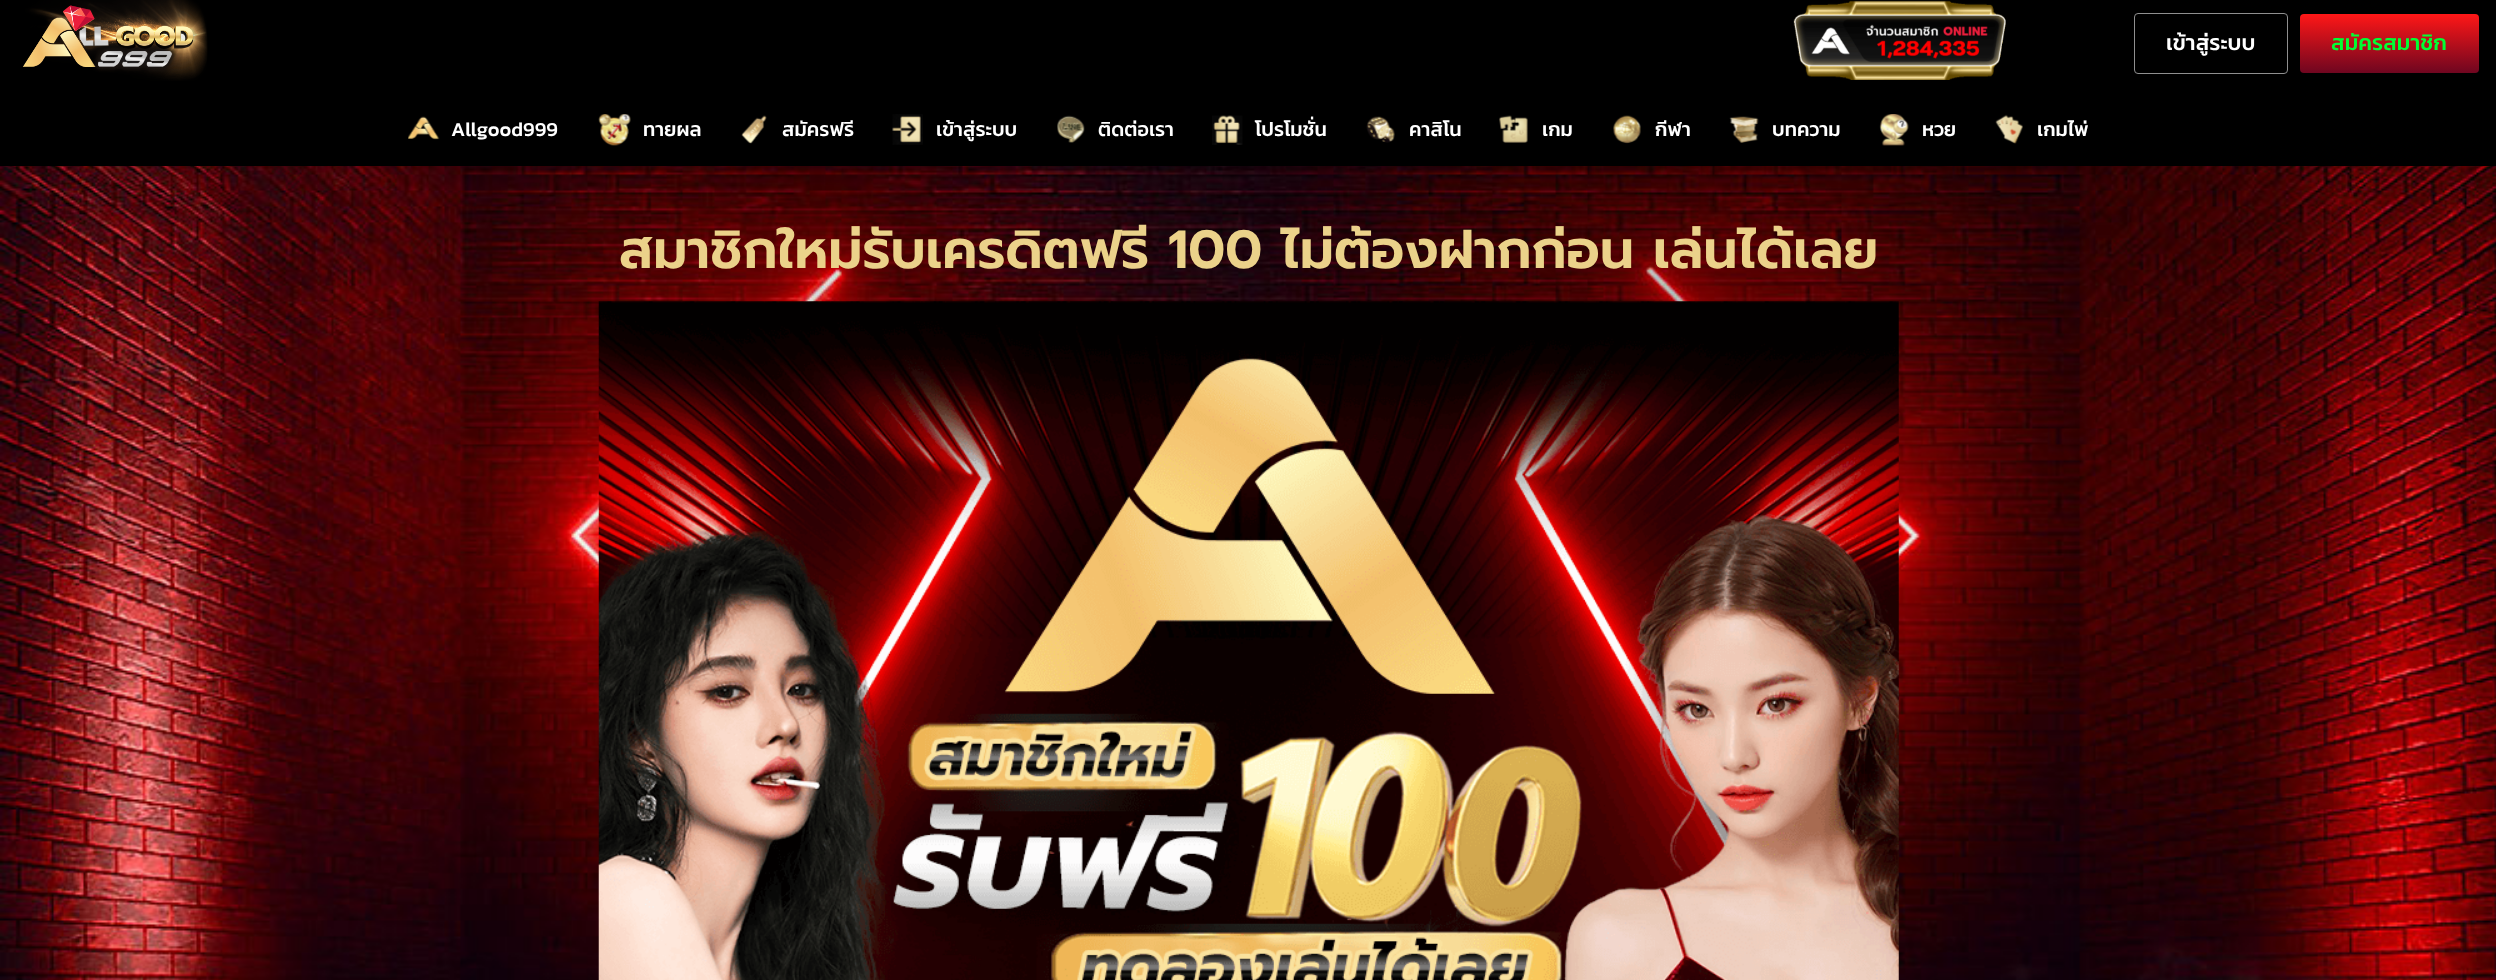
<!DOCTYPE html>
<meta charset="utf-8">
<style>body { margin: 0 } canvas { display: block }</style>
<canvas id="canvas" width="2496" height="980"></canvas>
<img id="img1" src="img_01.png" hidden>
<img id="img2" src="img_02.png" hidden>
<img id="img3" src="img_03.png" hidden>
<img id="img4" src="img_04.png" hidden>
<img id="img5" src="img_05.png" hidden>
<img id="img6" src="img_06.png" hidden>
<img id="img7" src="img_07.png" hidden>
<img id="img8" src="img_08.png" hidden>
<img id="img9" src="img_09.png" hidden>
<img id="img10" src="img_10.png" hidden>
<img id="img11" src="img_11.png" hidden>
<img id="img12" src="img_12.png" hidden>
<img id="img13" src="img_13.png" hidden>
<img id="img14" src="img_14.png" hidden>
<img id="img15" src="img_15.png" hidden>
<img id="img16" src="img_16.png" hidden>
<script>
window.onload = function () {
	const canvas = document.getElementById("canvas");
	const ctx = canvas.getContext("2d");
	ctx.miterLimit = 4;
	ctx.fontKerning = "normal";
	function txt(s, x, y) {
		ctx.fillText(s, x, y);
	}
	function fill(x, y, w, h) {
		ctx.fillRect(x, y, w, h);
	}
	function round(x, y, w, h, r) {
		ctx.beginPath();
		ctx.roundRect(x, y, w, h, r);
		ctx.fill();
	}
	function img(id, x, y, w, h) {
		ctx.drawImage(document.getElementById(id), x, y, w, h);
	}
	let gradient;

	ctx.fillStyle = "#FFFFFF";
	fill(0, 0, 2496, 980);
	ctx.fillStyle = "#000000";
	fill(0, 0, 2496, 166);
	img("img1", 22, 0, 186, 81);
	img("img2", 1793, 0, 213, 80);
	ctx.beginPath();
	ctx.roundRect(2134.5, 13.5, 153, 60, 3.5);
	ctx.strokeStyle = "#8F8F8F";
	ctx.stroke();
	gradient = ctx.createLinearGradient(2389, 14, 2389, 73);
	gradient.addColorStop(0, "#FF1717");
	gradient.addColorStop(1, "#6F0620");
	ctx.fillStyle = gradient;
	round(2300, 14, 179, 59, 4);
	img("img3", 408, 116, 32, 24);
	img("img4", 598, 114, 33, 32);
	img("img5", 741, 115, 26, 29);
	img("img6", 892, 114, 31, 31);
	img("img7", 1057, 115, 28, 28);
	img("img8", 1212, 115, 31, 30);
	img("img9", 1366, 116, 29, 27);
	img("img10", 1499, 115, 29, 28);
	img("img11", 1613, 115, 28, 29);
	img("img12", 1729, 116, 30, 27);
	img("img13", 1879, 114, 30, 32);
	img("img14", 1995, 114, 28, 30);
	img("img15", 0, 166, 2496, 814);
	img("img16", 598, 301, 1301, 679);
	ctx.font = "500 22px Kanit";
	ctx.fillStyle = "#FFFFFF";
	txt("เข้าสู่ระบบ", 2166, 50);
	ctx.fillStyle = "#00FF34";
	txt("สมัครสมาชิก", 2331, 50);
	ctx.font = "500 20px Kanit";
	ctx.fillStyle = "#FFFFFF";
	txt("Allgood999", 451, 136);
	txt("ทายผล", 643, 136);
	txt("สมัครฟรี", 782, 136);
	txt("เข้าสู่ระบบ", 936, 136);
	txt("ติดต่อเรา", 1098, 136);
	txt("โปรโมชั่น", 1255, 136);
	txt("คาสิโน", 1409, 136);
	txt("เกม", 1542, 136);
	txt("กีฬา", 1655, 136);
	txt("บทความ", 1772, 136);
	txt("หวย", 1922, 136);
	txt("เกมไพ่", 2037, 136);
	ctx.font = "600 53.75px Prompt";
	ctx.fillStyle = "#EBD28A";
	txt("สมาชิกใหม่รับเครดิตฟรี 100 ไม่ต้องฝากก่อน เล่นได้เลย", 619, 268);
};
</script>
